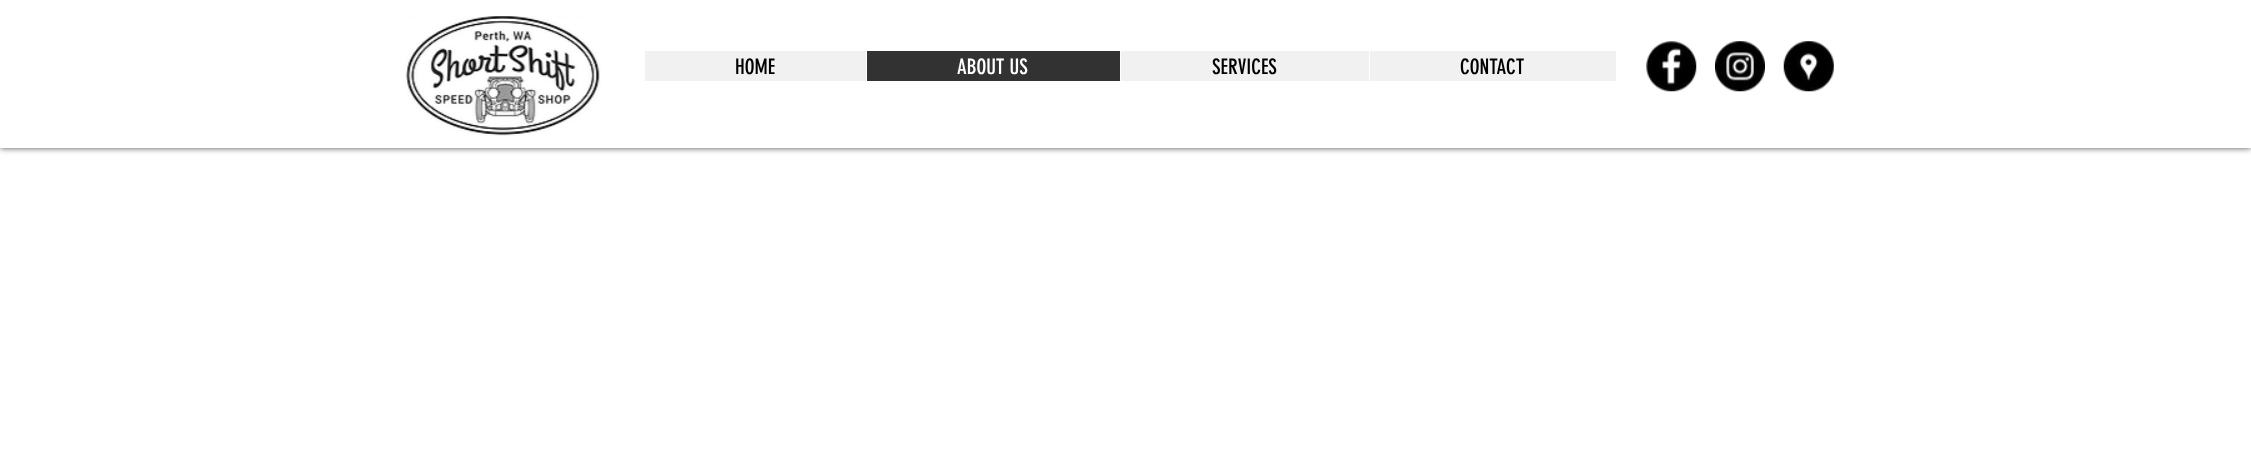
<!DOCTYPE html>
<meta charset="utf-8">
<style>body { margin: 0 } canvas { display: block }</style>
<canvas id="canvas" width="2251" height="470"></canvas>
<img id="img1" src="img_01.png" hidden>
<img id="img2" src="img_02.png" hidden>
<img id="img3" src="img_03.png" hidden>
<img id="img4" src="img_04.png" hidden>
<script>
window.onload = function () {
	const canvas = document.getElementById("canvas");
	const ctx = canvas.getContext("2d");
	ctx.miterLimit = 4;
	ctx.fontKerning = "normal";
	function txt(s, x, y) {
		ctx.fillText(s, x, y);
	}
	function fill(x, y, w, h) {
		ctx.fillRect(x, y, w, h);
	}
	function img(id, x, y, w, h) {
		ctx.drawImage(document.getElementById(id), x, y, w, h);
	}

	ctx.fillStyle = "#FFFFFF";
	fill(0, 0, 2251, 470);
	ctx.fillStyle = "rgba(0, 0, 0, 0.7)";
	ctx.filter = "blur(3px)";
	ctx.beginPath();
	ctx.rect(0, 0, 2251, 148);
	ctx.fill();
	ctx.filter = "none";
	ctx.fillStyle = "#FFFFFF";
	fill(0, 0, 2251, 148);
	img("img1", 405, 16, 196, 120);
	ctx.fillStyle = "#F1F1F1";
	fill(645, 51, 971, 30);
	ctx.fillStyle = "#323232";
	fill(867, 51, 253, 30);
	ctx.fillStyle = "#FFFFFF";
	fill(866, 51, 1, 30);
	fill(1120, 51, 1, 30);
	fill(1369, 51, 1, 30);
	img("img2", 1646, 41, 51, 51);
	img("img3", 1715, 41, 50, 51);
	img("img4", 1783, 41, 51, 51);
	ctx.font = "21px 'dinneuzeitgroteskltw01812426'";
	ctx.fillStyle = "#000000";
	txt("HOME", 735, 74);
	ctx.fillStyle = "#FFFFFF";
	txt("ABOUT US", 957, 74);
	ctx.fillStyle = "#000000";
	txt("SERVICES", 1212, 74);
	txt("CONTACT", 1460, 74);
};
</script>
